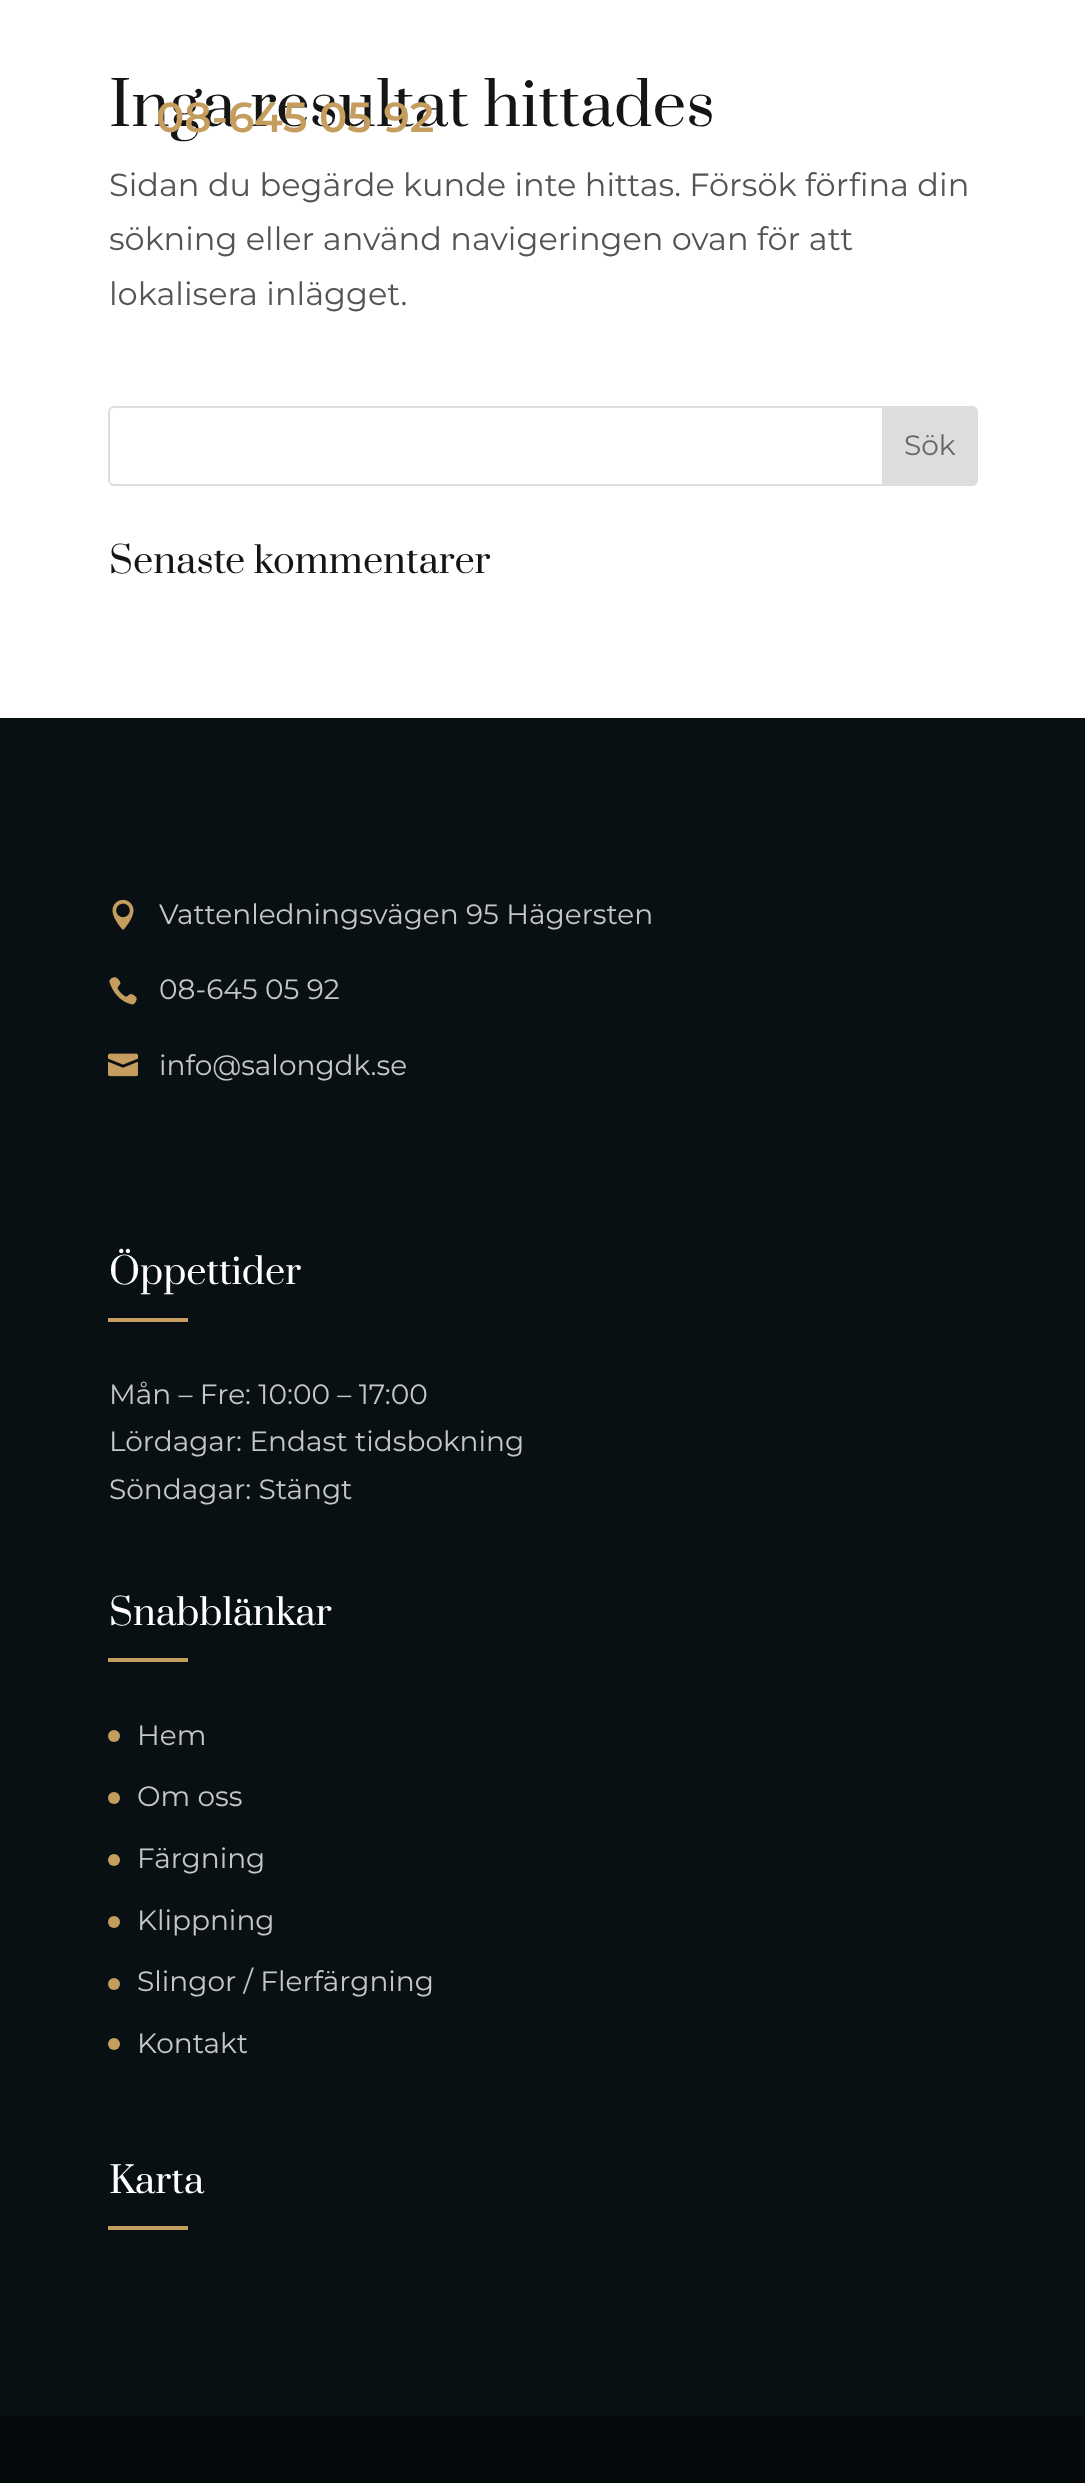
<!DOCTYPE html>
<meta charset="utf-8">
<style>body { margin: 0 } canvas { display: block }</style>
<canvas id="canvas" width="1085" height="2483"></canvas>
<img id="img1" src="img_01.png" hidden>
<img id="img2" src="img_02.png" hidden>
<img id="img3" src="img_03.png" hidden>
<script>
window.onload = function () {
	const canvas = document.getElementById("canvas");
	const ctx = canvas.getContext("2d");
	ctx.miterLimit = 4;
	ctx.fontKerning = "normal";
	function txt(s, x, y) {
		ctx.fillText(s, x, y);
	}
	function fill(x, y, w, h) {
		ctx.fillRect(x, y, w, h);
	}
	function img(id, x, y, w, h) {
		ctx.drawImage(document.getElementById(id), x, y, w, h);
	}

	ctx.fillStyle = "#FFFFFF";
	fill(0, 0, 1085, 2483);
	ctx.beginPath();
	ctx.roundRect(109, 407, 868, 78, 5);
	ctx.strokeStyle = "#DDDDDD";
	ctx.lineWidth = 2;
	ctx.stroke();
	ctx.fillStyle = "#DDDDDD";
	ctx.beginPath();
	ctx.roundRect(883, 407, 94, 78, [0, 5, 5, 0]);
	ctx.fill();
	ctx.stroke();
	ctx.fillStyle = "#081013";
	fill(0, 718, 1085, 1698);
	img("img1", 112, 899, 22, 31);
	img("img2", 109, 977, 28, 28);
	img("img3", 108, 1053, 30, 24);
	ctx.fillStyle = "#C59D5F";
	fill(108, 1318, 80, 4);
	fill(108, 1658, 80, 4);
	ctx.beginPath();
	ctx.arc(114, 1736, 6, 0, Math.PI * 2);
	ctx.fill();
	ctx.beginPath();
	ctx.arc(114, 1798, 6, 0, Math.PI * 2);
	ctx.fill();
	ctx.beginPath();
	ctx.arc(114, 1860, 6, 0, Math.PI * 2);
	ctx.fill();
	ctx.beginPath();
	ctx.arc(114, 1922, 6, 0, Math.PI * 2);
	ctx.fill();
	ctx.beginPath();
	ctx.arc(114, 1984, 6, 0, Math.PI * 2);
	ctx.fill();
	ctx.beginPath();
	ctx.arc(114, 2044, 6, 0, Math.PI * 2);
	ctx.fill();
	fill(108, 2226, 80, 4);
	ctx.fillStyle = "#050B0D";
	fill(0, 2416, 1085, 67);
	ctx.font = "60px Prata";
	ctx.fillStyle = "#151515";
	txt("Inga resultat hittades", 109, 126);
	ctx.font = "100 32px Montserrat";
	ctx.fillStyle = "#545454";
	txt("Sidan du begärde kunde inte hittas. Försök förfina din", 109, 196);
	txt("sökning eller använd navigeringen ovan för att", 109, 250);
	txt("lokalisera inlägget.", 109, 305);
	ctx.font = "100 28px Montserrat";
	ctx.fillStyle = "#666666";
	txt("Sök", 904, 455);
	ctx.font = "36px Prata";
	ctx.fillStyle = "#151515";
	txt("Senaste kommentarer", 109, 573);
	ctx.font = "100 28px Montserrat";
	ctx.fillStyle = "#C6C6C6";
	txt("Vattenledningsvägen 95 Hägersten", 159, 924);
	txt("08-645 05 92", 159, 999);
	txt("info@salongdk.se", 159, 1075);
	ctx.font = "36px Prata";
	ctx.fillStyle = "#FFFFFF";
	txt("Öppettider", 109, 1284);
	ctx.font = "100 28px Montserrat";
	ctx.fillStyle = "#C6C6C6";
	txt("Mån – Fre: 10:00 – 17:00", 109, 1404);
	txt("Lördagar: Endast tidsbokning", 109, 1451);
	txt("Söndagar: Stängt", 109, 1499);
	ctx.font = "36px Prata";
	ctx.fillStyle = "#FFFFFF";
	txt("Snabblänkar", 109, 1625);
	ctx.font = "100 28px Montserrat";
	ctx.fillStyle = "#C6C6C6";
	txt("Hem", 137, 1745);
	txt("Om oss", 137, 1806);
	txt("Färgning", 137, 1868);
	txt("Klippning", 137, 1930);
	txt("Slingor / Flerfärgning", 137, 1991);
	txt("Kontakt", 137, 2053);
	ctx.font = "36px Prata";
	ctx.fillStyle = "#FFFFFF";
	txt("Karta", 109, 2193);
	ctx.font = "100 42px 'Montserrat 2'";
	ctx.fillStyle = "#C59D5F";
	txt("08-645 05 92", 156, 132);
};
</script>
